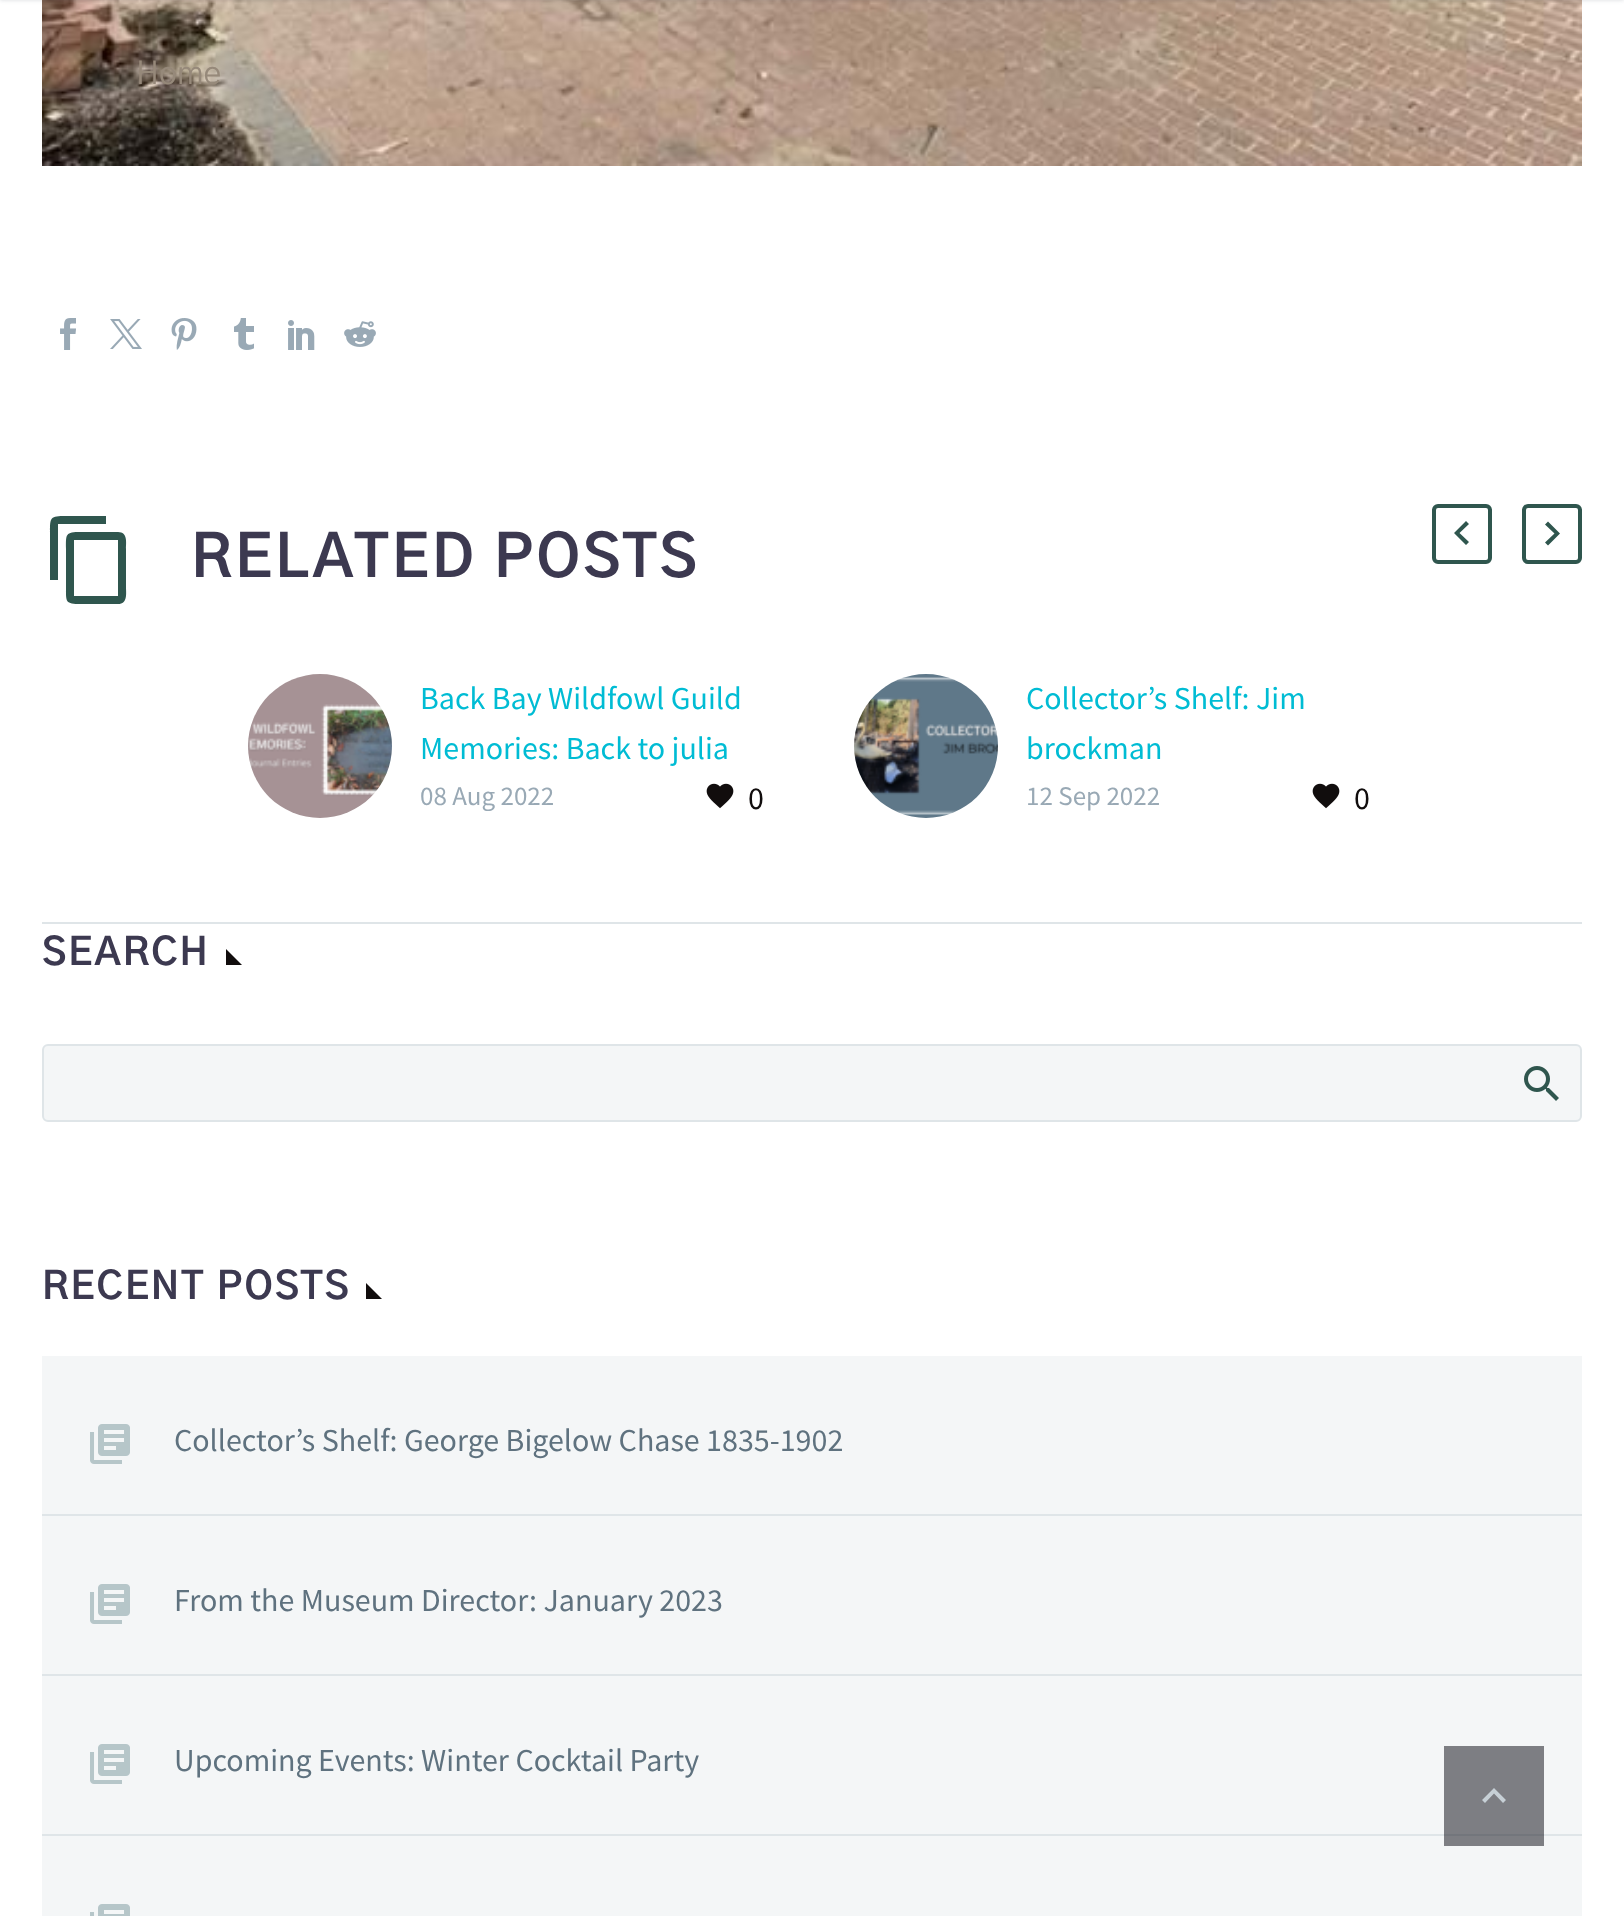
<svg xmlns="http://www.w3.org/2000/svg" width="1624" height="1916">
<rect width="100%" height="100%" fill="#fff"/>
<image x="42" y="0" width="1540" height="166" href="media/1.png"/>
<rect y="-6" width="1624" height="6" fill="#38455433" filter="blur(2px)"/>
<text x="136" y="84" style="font-family:'Gothic A1';font-size:32px;fill:#96897a">Home</text>
<image x="60" y="318" width="16" height="32" href="media/2.png"/>
<image x="110" y="319" width="32" height="30" href="media/3.png"/>
<image x="171" y="318" width="26" height="32" href="media/4.png"/>
<image x="234" y="318" width="20" height="32" href="media/5.png"/>
<image x="288" y="320" width="27" height="30" href="media/6.png"/>
<image x="344" y="321" width="32" height="26" href="media/7.png"/>
<rect x="42" y="922" width="1540" height="2" fill="#dfe5e8"/>
<path d="M106 516h-40c-16 0-16 1-16 17v47h8v-56h48zm12 16h-37c-16 0-15 2-15 17v38c0 15-1 17 15 17h37c10 0 8-11 8-17v-38c0-6 2-17-8-17zm0 64h-44v-56h44z" fill="#2f564e"/>
<text x="191" y="577" style="font-family:'Gothic A1';font-size:58.5px;font-weight:bold;letter-spacing:2.9px;fill:#3c3950">RELATED POSTS</text>
<rect x="1434" y="506" width="56" height="56" rx="4" fill="none" stroke="#2f564e" stroke-width="4"/>
<path d="M1469 542l-9.5-9l9.5-9l-3-3l-12 12l12 12z" fill="#2f564e"/>
<rect x="1524" y="506" width="56" height="56" rx="4" fill="none" stroke="#2f564e" stroke-width="4"/>
<path d="M1545 542.5l9.5-9l-9.5-9l3-3l12 12l-12 12z" fill="#2f564e"/>
<image x="248" y="674" width="144" height="144" href="media/8.png"/>
<text x="420" y="709" style="font-family:Source Sans Pro;font-size:32px;fill:#00bcd4">Back Bay Wildfowl Guild</text>
<text x="420" y="759" style="font-family:Source Sans Pro;font-size:32px;fill:#00bcd4">Memories: Back to julia</text>
<text x="420" y="805" style="font-family:Source Sans Pro;font-size:27px;fill:#99a9b5">08 Aug 2022</text>
<image x="706" y="783" width="28" height="26" href="media/9.png"/>
<text x="748" y="809" style="font-family:Source Sans Pro;font-size:32px;fill:#110d0d">0</text>
<image x="854" y="674" width="144" height="144" href="media/10.png"/>
<text x="1026" y="709" style="font-family:Source Sans Pro;font-size:32px;fill:#00bcd4">Collector’s Shelf: Jim</text>
<text x="1026" y="759" style="font-family:Source Sans Pro;font-size:32px;fill:#00bcd4">brockman</text>
<text x="1026" y="805" style="font-family:Source Sans Pro;font-size:27px;fill:#99a9b5">12 Sep 2022</text>
<image x="1312" y="783" width="28" height="26" href="media/9.png"/>
<text x="1354" y="809" style="font-family:Source Sans Pro;font-size:32px;fill:#110d0d">0</text>
<text x="42" y="965" style="font-family:'Gothic A1';font-size:38px;font-weight:bold;letter-spacing:1.9px;fill:#3c3950">SEARCH</text>
<path d="M226 949v16h16z" fill="#110d0d"/>
<rect x="43" y="1045" width="1538" height="76" rx="5" fill="#f4f6f7" stroke="#dfe5e8" stroke-width="2"/>
<image x="1524" y="1066" width="35" height="35" href="media/11.png"/>
<text x="42" y="1299" style="font-family:'Gothic A1';font-size:38px;font-weight:bold;letter-spacing:1.9px;fill:#3c3950">RECENT POSTS</text>
<path d="M366 1283v16h16z" fill="#110d0d"/>
<rect x="42" y="1356" width="1540" height="560" fill="#f4f6f7"/>
<rect x="1444" y="1746" width="100" height="100" fill="#7d7e83"/>
<rect x="42" y="1514" width="1540" height="2" fill="#dfe5e8"/>
<image x="90" y="1424" width="40" height="40" href="media/12.png"/>
<text x="174" y="1451" style="font-family:Source Sans Pro;font-size:32px;fill:#5f727f">Collector’s Shelf: George Bigelow Chase 1835-1902</text>
<rect x="42" y="1674" width="1540" height="2" fill="#dfe5e8"/>
<image x="90" y="1584" width="40" height="40" href="media/12.png"/>
<text x="174" y="1611" style="font-family:Source Sans Pro;font-size:32px;fill:#5f727f">From the Museum Director: January 2023</text>
<rect x="42" y="1834" width="1540" height="2" fill="#dfe5e8"/>
<rect x="1444" y="1834" width="100" height="2" fill="#73767c"/>
<image x="90" y="1744" width="40" height="40" href="media/12.png"/>
<text x="174" y="1771" style="font-family:Source Sans Pro;font-size:32px;fill:#5f727f">Upcoming Events: Winter Cocktail Party</text>
<image x="90" y="1904" width="40" height="12" href="media/13.png"/>
<path d="M1485 1803l9-9.5l9 9.5l3-3l-12-12l-12 12z" fill="#c7d0d6"/>
</svg>
